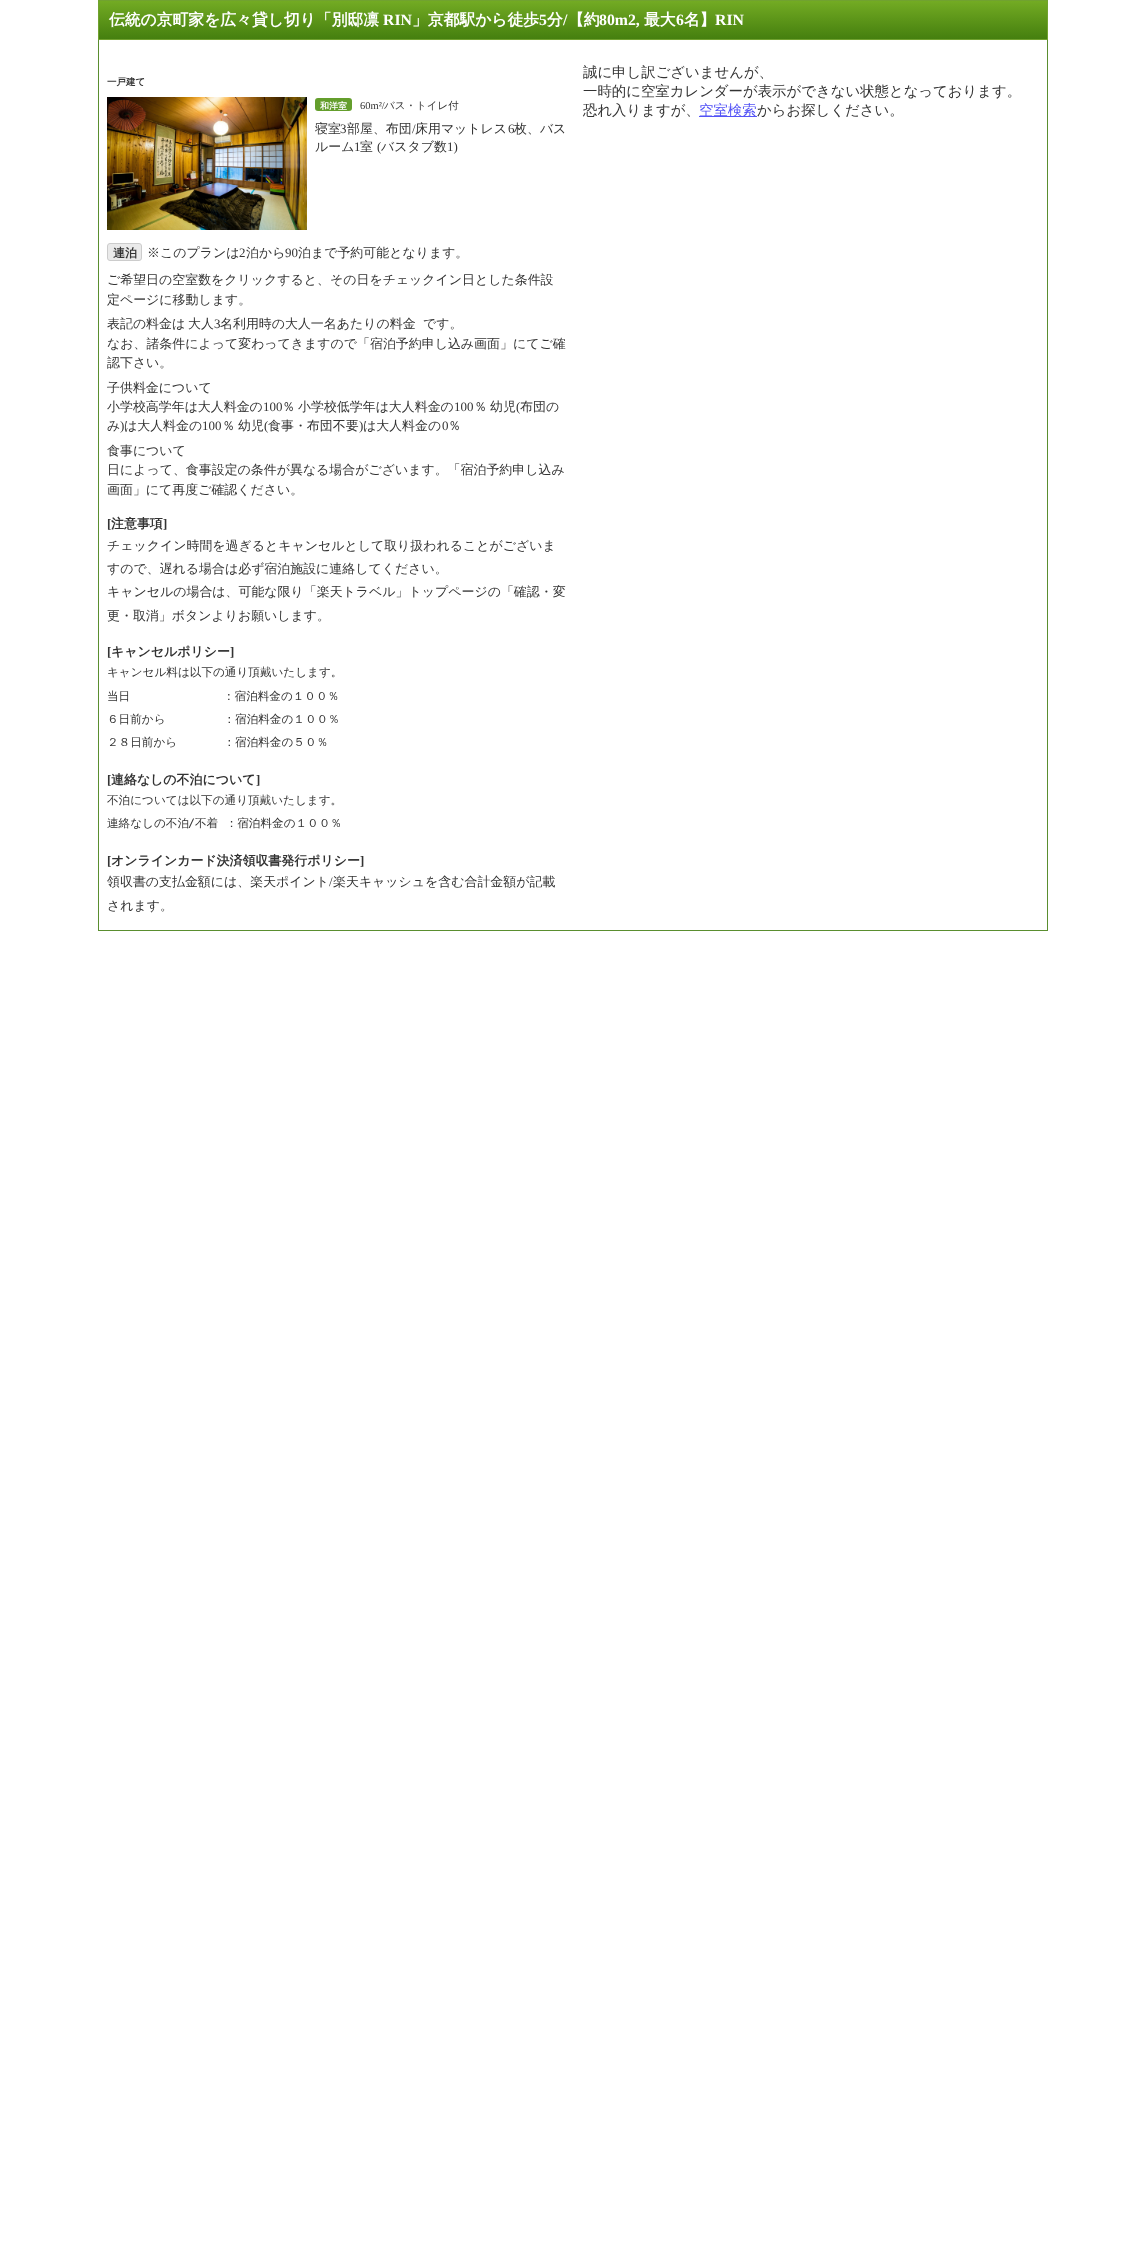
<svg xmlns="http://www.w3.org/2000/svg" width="1145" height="2241">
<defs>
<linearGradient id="g1" gradientUnits="userSpaceOnUse" x1="573" y1="1" x2="573" y2="39"><stop offset="0" stop-color="#73ab23"/><stop offset="1" stop-color="#457f0f"/></linearGradient>
<clipPath id="clip1"><rect x="107" y="314" width="460" height="59"/></clipPath>
</defs>
<rect width="100%" height="100%" fill="#fff"/>
<rect x="99" y="1" width="948" height="38" fill="url(#g1)"/>
<rect x="98.5" y="0.5" width="949" height="39" fill="none" stroke="#71a230"/>
<text x="109" y="25" style="font-family:WenQuanYi Zen Hei;font-size:15.8px;font-weight:bold;fill:#fff">伝統の京町家を広々貸し切り「別邸凛</text>
<text x="383" y="25" style="font-family:Liberation Serif;font-size:15.8px;font-weight:bold;fill:#fff">RIN</text>
<text x="412" y="25" style="font-family:WenQuanYi Zen Hei;font-size:15.8px;font-weight:bold;fill:#fff">」京都駅から徒歩</text>
<text x="539" y="25" style="font-family:Liberation Serif;font-size:15.8px;font-weight:bold;fill:#fff">5</text>
<text x="547" y="25" style="font-family:WenQuanYi Zen Hei;font-size:15.8px;font-weight:bold;fill:#fff">分</text>
<text x="563" y="25" style="font-family:Liberation Serif;font-size:15.8px;font-weight:bold;fill:#fff">/</text>
<text x="568" y="25" style="font-family:WenQuanYi Zen Hei;font-size:15.8px;font-weight:bold;fill:#fff">【約</text>
<text x="599" y="25" style="font-family:Liberation Serif;font-size:15.8px;font-weight:bold;fill:#fff">80m2,</text>
<text x="644" y="25" style="font-family:WenQuanYi Zen Hei;font-size:15.8px;font-weight:bold;fill:#fff">最大</text>
<text x="676" y="25" style="font-family:Liberation Serif;font-size:15.8px;font-weight:bold;fill:#fff">6</text>
<text x="684" y="25" style="font-family:WenQuanYi Zen Hei;font-size:15.8px;font-weight:bold;fill:#fff">名】</text>
<text x="715" y="25" style="font-family:Liberation Serif;font-size:15.8px;font-weight:bold;fill:#fff">RIN</text>
<rect x="1047" y="40" width="1" height="891" fill="#5a8e2f"/>
<rect x="98" y="930" width="950" height="1" fill="#5a8e2f"/>
<rect x="98" y="40" width="1" height="891" fill="#5a8e2f"/>
<text x="107" y="85" style="font-family:WenQuanYi Zen Hei;font-size:9.5px;font-weight:bold;fill:#333">一戸建て</text>
<image x="107" y="97" width="200" height="133" href="media/1.png"/>
<rect x="315" y="98" width="37" height="13" rx="3" fill="#649e2c"/>
<text x="320" y="109" style="font-family:WenQuanYi Zen Hei;font-size:9px;font-weight:bold;fill:#fff">和洋室</text>
<text x="360" y="109" style="font-family:Liberation Serif;font-size:10.5px;fill:#333">60m²/</text>
<text x="384" y="109" style="font-family:WenQuanYi Zen Hei;font-size:10.5px;font-weight:500;fill:#333">バス・トイレ付</text>
<text x="315" y="133" style="font-family:WenQuanYi Zen Hei;font-size:12.95px;font-weight:500;fill:#333">寝室</text>
<text x="340" y="133" style="font-family:Liberation Serif;font-size:12.95px;fill:#333">3</text>
<text x="347" y="133" style="font-family:WenQuanYi Zen Hei;font-size:12.95px;font-weight:500;fill:#333">部屋、布団</text>
<text x="412" y="133" style="font-family:Liberation Serif;font-size:12.95px;fill:#333">/</text>
<text x="415" y="133" style="font-family:WenQuanYi Zen Hei;font-size:12.95px;font-weight:500;fill:#333">床用マットレス</text>
<text x="508" y="133" style="font-family:Liberation Serif;font-size:12.95px;fill:#333">6</text>
<text x="514" y="133" style="font-family:WenQuanYi Zen Hei;font-size:12.95px;font-weight:500;fill:#333">枚、バス</text>
<text x="315" y="151" style="font-family:WenQuanYi Zen Hei;font-size:12.95px;font-weight:500;fill:#333">ルーム</text>
<text x="354" y="151" style="font-family:Liberation Serif;font-size:12.95px;fill:#333">1</text>
<text x="360" y="151" style="font-family:WenQuanYi Zen Hei;font-size:12.95px;font-weight:500;fill:#333">室</text>
<text x="377" y="151" style="font-family:Liberation Serif;font-size:12.95px;fill:#333">(</text>
<text x="381" y="151" style="font-family:WenQuanYi Zen Hei;font-size:12.95px;font-weight:500;fill:#333">バスタブ数</text>
<text x="447" y="151" style="font-family:Liberation Serif;font-size:12.95px;fill:#333">1)</text>
<rect x="107.5" y="243.5" width="34" height="17" rx="2.5" fill="#eaeaea" stroke="#ccc"/>
<text x="113" y="257" style="font-family:WenQuanYi Zen Hei;font-size:12px;font-weight:bold;fill:#333">連泊</text>
<text x="147" y="257" style="font-family:WenQuanYi Zen Hei;font-size:12.95px;font-weight:500;fill:#333">※このプランは</text>
<text x="239" y="257" style="font-family:Liberation Serif;font-size:12.95px;fill:#333">2</text>
<text x="246" y="257" style="font-family:WenQuanYi Zen Hei;font-size:12.95px;font-weight:500;fill:#333">泊から</text>
<text x="285" y="257" style="font-family:Liberation Serif;font-size:12.95px;fill:#333">90</text>
<text x="298" y="257" style="font-family:WenQuanYi Zen Hei;font-size:12.95px;font-weight:500;fill:#333">泊まで予約可能となります。</text>
<text x="107" y="284" style="font-family:WenQuanYi Zen Hei;font-size:12.95px;font-weight:500;fill:#333">ご希望日の空室数をクリックすると、その日をチェックイン日とした条件設</text>
<text x="107" y="304" style="font-family:WenQuanYi Zen Hei;font-size:12.95px;font-weight:500;fill:#333">定ページに移動します。</text>
<text x="107" y="328" style="font-family:WenQuanYi Zen Hei;font-size:12.95px;font-weight:500;fill:#333">表記の料金は</text>
<text x="188" y="328" style="font-family:WenQuanYi Zen Hei;font-size:12.95px;font-weight:500;fill:#333">大人</text>
<text x="214" y="328" style="font-family:Liberation Serif;font-size:12.95px;fill:#333">3</text>
<text x="220" y="328" style="font-family:WenQuanYi Zen Hei;font-size:12.95px;font-weight:500;fill:#333">名利用時の大人一名あたりの料金</text>
<text x="423" y="328" style="font-family:WenQuanYi Zen Hei;font-size:12.95px;font-weight:500;fill:#333">です。</text>
<text x="107" y="348" style="font-family:WenQuanYi Zen Hei;font-size:12.95px;font-weight:500;fill:#333">なお、諸条件によって変わってきますので「宿泊予約申し込み画面」にてご確</text>
<g clip-path="url(#clip1)">
<text x="107" y="367" style="font-family:WenQuanYi Zen Hei;font-size:12.95px;font-weight:500;fill:#333">認下さい。</text>
</g>
<text x="107" y="392" style="font-family:WenQuanYi Zen Hei;font-size:12.95px;font-weight:500;fill:#333">子供料金について</text>
<text x="107" y="411" style="font-family:WenQuanYi Zen Hei;font-size:12.95px;font-weight:500;fill:#333">小学校高学年は大人料金の</text>
<text x="263" y="411" style="font-family:Liberation Serif;font-size:12.95px;fill:#333">100</text>
<text x="282" y="411" style="font-family:WenQuanYi Zen Hei;font-size:12.95px;font-weight:500;fill:#333">％</text>
<text x="298" y="411" style="font-family:WenQuanYi Zen Hei;font-size:12.95px;font-weight:500;fill:#333">小学校低学年は大人料金の</text>
<text x="454" y="411" style="font-family:Liberation Serif;font-size:12.95px;fill:#333">100</text>
<text x="474" y="411" style="font-family:WenQuanYi Zen Hei;font-size:12.95px;font-weight:500;fill:#333">％</text>
<text x="490" y="411" style="font-family:WenQuanYi Zen Hei;font-size:12.95px;font-weight:500;fill:#333">幼児</text>
<text x="516" y="411" style="font-family:Liberation Serif;font-size:12.95px;fill:#333">(</text>
<text x="520" y="411" style="font-family:WenQuanYi Zen Hei;font-size:12.95px;font-weight:500;fill:#333">布団の</text>
<text x="107" y="430" style="font-family:WenQuanYi Zen Hei;font-size:12.95px;font-weight:500;fill:#333">み</text>
<text x="120" y="430" style="font-family:Liberation Serif;font-size:12.95px;fill:#333">)</text>
<text x="124" y="430" style="font-family:WenQuanYi Zen Hei;font-size:12.95px;font-weight:500;fill:#333">は大人料金の</text>
<text x="202" y="430" style="font-family:Liberation Serif;font-size:12.95px;fill:#333">100</text>
<text x="222" y="430" style="font-family:WenQuanYi Zen Hei;font-size:12.95px;font-weight:500;fill:#333">％</text>
<text x="238" y="430" style="font-family:WenQuanYi Zen Hei;font-size:12.95px;font-weight:500;fill:#333">幼児</text>
<text x="264" y="430" style="font-family:Liberation Serif;font-size:12.95px;fill:#333">(</text>
<text x="268" y="430" style="font-family:WenQuanYi Zen Hei;font-size:12.95px;font-weight:500;fill:#333">食事・布団不要</text>
<text x="359" y="430" style="font-family:Liberation Serif;font-size:12.95px;fill:#333">)</text>
<text x="363" y="430" style="font-family:WenQuanYi Zen Hei;font-size:12.95px;font-weight:500;fill:#333">は大人料金の</text>
<text x="442" y="430" style="font-family:Liberation Serif;font-size:12.95px;fill:#333">0</text>
<text x="448" y="430" style="font-family:WenQuanYi Zen Hei;font-size:12.95px;font-weight:500;fill:#333">％</text>
<text x="107" y="455" style="font-family:WenQuanYi Zen Hei;font-size:12.95px;font-weight:500;fill:#333">食事について</text>
<text x="107" y="474" style="font-family:WenQuanYi Zen Hei;font-size:12.95px;font-weight:500;fill:#333">日によって、食事設定の条件が異なる場合がございます。「宿泊予約申し込み</text>
<text x="107" y="494" style="font-family:WenQuanYi Zen Hei;font-size:12.95px;font-weight:500;fill:#333">画面」にて再度ご確認ください。</text>
<text x="107" y="528" style="font-family:Liberation Serif;font-size:12.95px;font-weight:bold;fill:#333">[</text>
<text x="111" y="528" style="font-family:WenQuanYi Zen Hei;font-size:12.95px;font-weight:bold;fill:#333">注意事項</text>
<text x="163" y="528" style="font-family:Liberation Serif;font-size:12.95px;font-weight:bold;fill:#333">]</text>
<text x="107" y="550" style="font-family:WenQuanYi Zen Hei;font-size:12.95px;font-weight:500;fill:#333">チェックイン時間を過ぎるとキャンセルとして取り扱われることがございま</text>
<text x="107" y="573" style="font-family:WenQuanYi Zen Hei;font-size:12.95px;font-weight:500;fill:#333">すので、遅れる場合は必ず宿泊施設に連絡してください。</text>
<text x="107" y="596" style="font-family:WenQuanYi Zen Hei;font-size:12.95px;font-weight:500;fill:#333">キャンセルの場合は、可能な限り「楽天トラベル」トップページの「確認・変</text>
<text x="107" y="620" style="font-family:WenQuanYi Zen Hei;font-size:12.95px;font-weight:500;fill:#333">更・取消」ボタンよりお願いします。</text>
<text x="107" y="656" style="font-family:Liberation Serif;font-size:12.95px;font-weight:bold;fill:#333">[</text>
<text x="111" y="656" style="font-family:WenQuanYi Zen Hei;font-size:12.95px;font-weight:bold;fill:#333">キャンセルポリシー</text>
<text x="230" y="656" style="font-family:Liberation Serif;font-size:12.95px;font-weight:bold;fill:#333">]</text>
<text x="107" y="676" style="font-family:WenQuanYi Zen Hei;font-size:11.6px;font-weight:500;fill:#333">キャンセル料は以下の通り頂戴いたします。</text>
<text x="107" y="700" style="font-family:WenQuanYi Zen Hei;font-size:11.6px;font-weight:500;fill:#333">当日　　　　　　　　：宿泊料金の１００％</text>
<text x="107" y="723" style="font-family:WenQuanYi Zen Hei;font-size:11.6px;font-weight:500;fill:#333">６日前から　　　　　：宿泊料金の１００％</text>
<text x="107" y="746" style="font-family:WenQuanYi Zen Hei;font-size:11.6px;font-weight:500;fill:#333">２８日前から　　　　：宿泊料金の５０％</text>
<text x="107" y="784" style="font-family:Liberation Serif;font-size:12.95px;font-weight:bold;fill:#333">[</text>
<text x="111" y="784" style="font-family:WenQuanYi Zen Hei;font-size:12.95px;font-weight:bold;fill:#333">連絡なしの不泊について</text>
<text x="256" y="784" style="font-family:Liberation Serif;font-size:12.95px;font-weight:bold;fill:#333">]</text>
<text x="107" y="804" style="font-family:WenQuanYi Zen Hei;font-size:11.6px;font-weight:500;fill:#333">不泊については以下の通り頂戴いたします。</text>
<text x="107" y="827" style="font-family:WenQuanYi Zen Hei;font-size:11.6px;font-weight:500;fill:#333">連絡なしの不泊</text>
<text x="188" y="827" style="font-family:DejaVu Sans Mono;font-size:11.6px;fill:#333">/</text>
<text x="195" y="827" word-spacing="4" style="font-family:WenQuanYi Zen Hei;font-size:11.6px;font-weight:500;fill:#333">不着 ：宿泊料金の１００％</text>
<text x="107" y="865" style="font-family:Liberation Serif;font-size:12.95px;font-weight:bold;fill:#333">[</text>
<text x="111" y="865" style="font-family:WenQuanYi Zen Hei;font-size:12.95px;font-weight:bold;fill:#333">オンラインカード決済領収書発行ポリシー</text>
<text x="360" y="865" style="font-family:Liberation Serif;font-size:12.95px;font-weight:bold;fill:#333">]</text>
<text x="107" y="886" style="font-family:WenQuanYi Zen Hei;font-size:12.95px;font-weight:500;fill:#333">領収書の支払金額には、楽天ポイント</text>
<text x="329" y="886" style="font-family:Liberation Serif;font-size:12.95px;fill:#333">/</text>
<text x="333" y="886" style="font-family:WenQuanYi Zen Hei;font-size:12.95px;font-weight:500;fill:#333">楽天キャッシュを含む合計金額が記載</text>
<text x="107" y="910" style="font-family:WenQuanYi Zen Hei;font-size:12.95px;font-weight:500;fill:#333">されます。</text>
<text x="583" y="77" style="font-family:WenQuanYi Zen Hei;font-size:14.4px;font-weight:500;fill:#333">誠に申し訳ございませんが、</text>
<text x="583" y="96" style="font-family:WenQuanYi Zen Hei;font-size:14.4px;font-weight:500;fill:#333">一時的に空室カレンダーが表示ができない状態となっております。</text>
<text x="583" y="115" style="font-family:WenQuanYi Zen Hei;font-size:14.4px;font-weight:500;fill:#333">恐れ入りますが、</text>
<rect x="699" y="116" width="58" height="1" fill="#5454f6"/>
<text x="699" y="115" style="font-family:WenQuanYi Zen Hei;font-size:14.4px;font-weight:500;fill:#5454f6">空室検索</text>
<text x="757" y="115" style="font-family:WenQuanYi Zen Hei;font-size:14.4px;font-weight:500;fill:#333">からお探しください。</text>
</svg>
